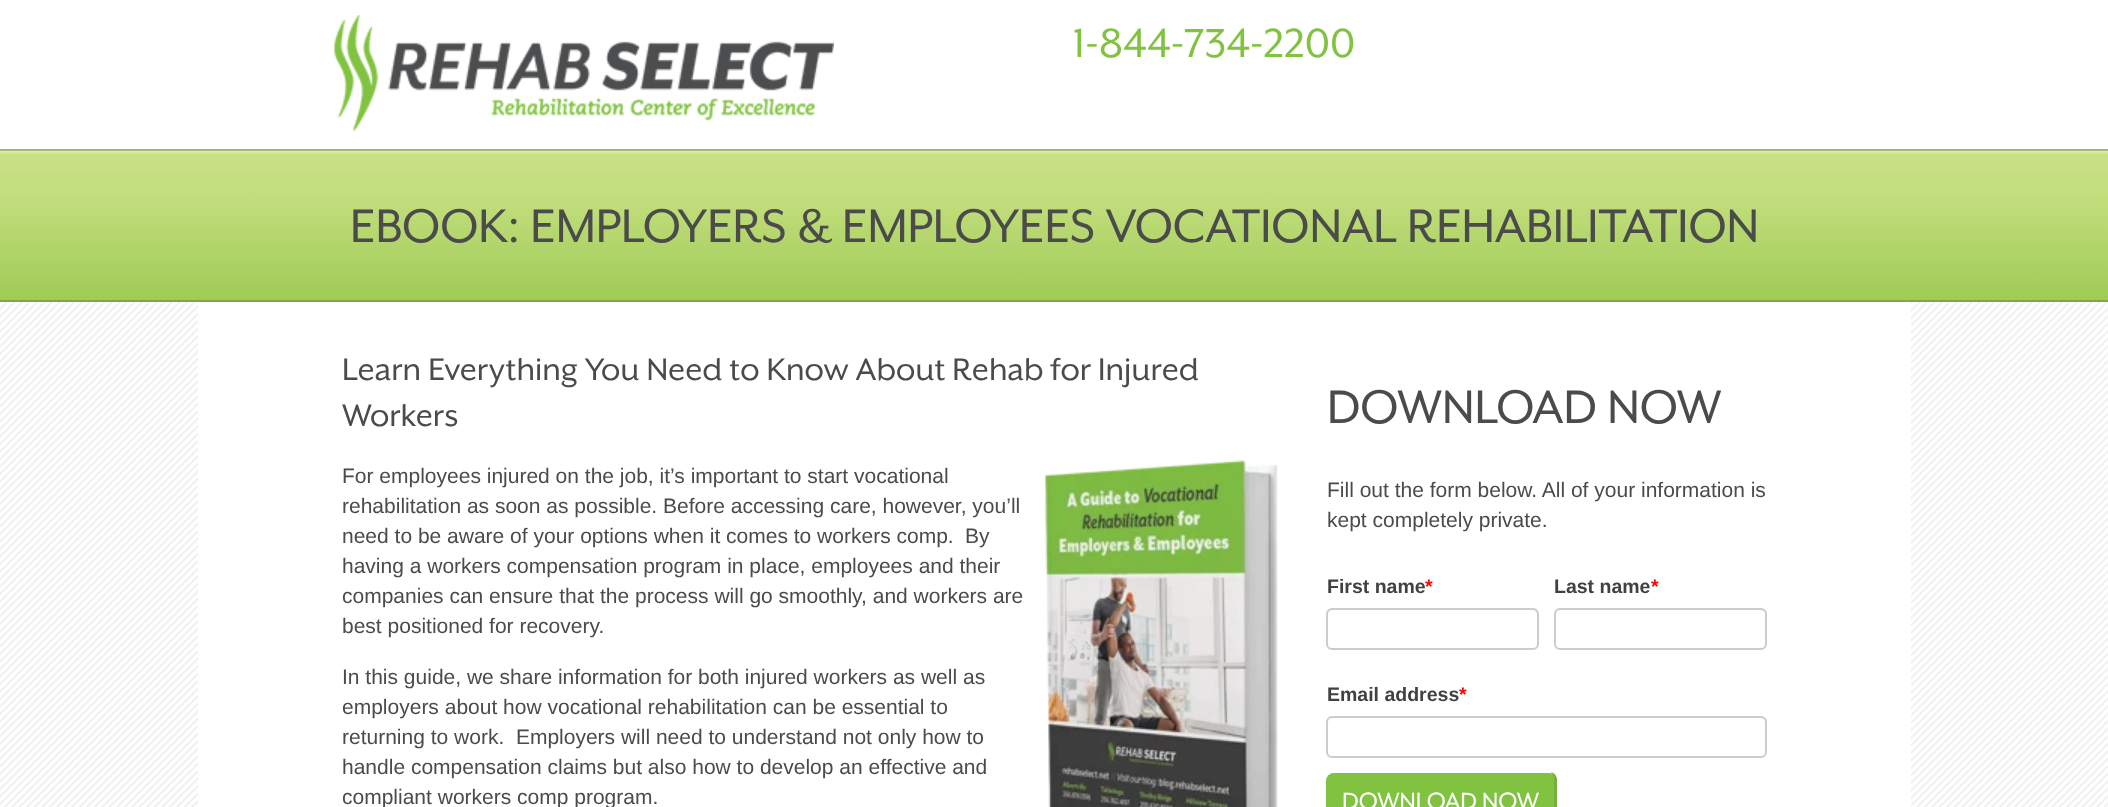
<svg xmlns="http://www.w3.org/2000/svg" width="2108" height="807">
<defs>
<linearGradient id="g1" gradientUnits="userSpaceOnUse" x1="1055" y1="150" x2="1055" y2="300"><stop offset="0" stop-color="#e5f1c2"/><stop offset="0.03" stop-color="#cae286"/><stop offset="0.38" stop-color="#bfdc79"/><stop offset="1" stop-color="#9fcb56"/></linearGradient>
</defs>
<rect width="100%" height="100%" fill="#fff"/>
<image x="0" y="302" width="2108" height="505" href="media/1.png"/>
<image x="334" y="15" width="500" height="116" href="media/2.png"/>
<text x="1073" y="57" style="font-family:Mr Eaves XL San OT;font-size:46.5px;fill:#81c341">1-844-734-2200</text>
<rect y="151" width="2108" height="149" fill="url(#g1)"/>
<rect y="149" width="2108" height="2" fill="#a2ba66"/>
<rect y="300" width="2108" height="2" fill="#82a546"/>
<text x="350" y="242" style="font-family:Mr Eaves XL San OT;font-size:54px;fill:#4b4b4b">EBOOK: EMPLOYERS &amp; EMPLOYEES VOCATIONAL REHABILITATION</text>
<rect x="198" y="302" width="1713" height="505" fill="#fff"/>
<text x="342" y="380" style="font-family:Mr Eaves XL San OT;font-size:36px;fill:#4b4b4b">Learn Everything You Need to Know About Rehab for Injured</text>
<text x="342" y="426" style="font-family:Mr Eaves XL San OT;font-size:36px;fill:#4b4b4b">Workers</text>
<text x="342" y="483" style="font-family:Liberation Sans;font-size:21px;fill:#4b4b4b">For employees injured on the job, it’s important to start vocational</text>
<text x="342" y="513" style="font-family:Liberation Sans;font-size:21px;fill:#4b4b4b">rehabilitation as soon as possible. Before accessing care, however, you’ll</text>
<text x="342" y="543" style="font-family:Liberation Sans;font-size:21px;fill:#4b4b4b">need to be aware of your options when it comes to workers comp.</text>
<text x="965" y="543" style="font-family:Liberation Sans;font-size:21px;fill:#4b4b4b">By</text>
<text x="342" y="573" style="font-family:Liberation Sans;font-size:21px;fill:#4b4b4b">having a workers compensation program in place, employees and their</text>
<text x="342" y="603" style="font-family:Liberation Sans;font-size:21px;fill:#4b4b4b">companies can ensure that the process will go smoothly, and workers are</text>
<text x="342" y="633" style="font-family:Liberation Sans;font-size:21px;fill:#4b4b4b">best positioned for recovery.</text>
<image x="1044" y="460" width="234" height="347" href="media/3.png"/>
<text x="342" y="684" style="font-family:Liberation Sans;font-size:21px;fill:#4b4b4b">In this guide, we share information for both injured workers as well as</text>
<text x="342" y="714" style="font-family:Liberation Sans;font-size:21px;fill:#4b4b4b">employers about how vocational rehabilitation can be essential to</text>
<text x="342" y="744" style="font-family:Liberation Sans;font-size:21px;fill:#4b4b4b" xml:space="preserve">returning to work.  Employers will need to understand not only how to</text>
<text x="342" y="774" style="font-family:Liberation Sans;font-size:21px;fill:#4b4b4b">handle compensation claims but also how to develop an effective and</text>
<text x="342" y="804" style="font-family:Liberation Sans;font-size:21px;fill:#4b4b4b">compliant workers comp program.</text>
<text x="1327" y="423" style="font-family:Mr Eaves XL San OT;font-size:54px;fill:#4b4b4b">DOWNLOAD NOW</text>
<text x="1327" y="497" style="font-family:Liberation Sans;font-size:21px;fill:#4b4b4b">Fill out the form below. All of your information is</text>
<text x="1327" y="527" style="font-family:Liberation Sans;font-size:21px;fill:#4b4b4b">kept completely private.</text>
<text x="1327" y="593" style="font-family:Liberation Sans;font-size:19.5px;font-weight:bold;fill:#414141">First name</text>
<text x="1425" y="593" style="font-family:Liberation Sans;font-size:19.5px;font-weight:bold;fill:#f00">*</text>
<path d="M1332 610h201l3 2l2 3v-1c0-3-2-5-5-5h-200c-3 0-5 2-5 5v1c0-2 2-5 4-5z" fill="#ececec"/>
<rect x="1327" y="609" width="211" height="40" rx="5" fill="none" stroke="#ccc" stroke-width="2"/>
<text x="1554" y="593" style="font-family:Liberation Sans;font-size:19.5px;font-weight:bold;fill:#414141">Last name</text>
<text x="1651" y="593" style="font-family:Liberation Sans;font-size:19.5px;font-weight:bold;fill:#f00">*</text>
<path d="M1560 610h201l3 2l2 3v-1c0-3-2-5-5-5h-200c-3 0-5 2-5 5v1c0-2 2-5 4-5z" fill="#ececec"/>
<rect x="1555" y="609" width="211" height="40" rx="5" fill="none" stroke="#ccc" stroke-width="2"/>
<text x="1327" y="701" style="font-family:Liberation Sans;font-size:19.5px;font-weight:bold;fill:#414141">Email address</text>
<text x="1459" y="701" style="font-family:Liberation Sans;font-size:19.5px;font-weight:bold;fill:#f00">*</text>
<path d="M1332 718h429c2 0 5 3 5 5c0-3-2-6-5-6h-428c-3 0-5 3-5 6c0-2 2-5 4-5z" fill="#ececec"/>
<rect x="1327" y="717" width="439" height="40" rx="5" fill="none" stroke="#ccc" stroke-width="2"/>
<rect x="1326" y="773" width="231" height="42" rx="8" fill="#81c341"/>
<path d="M1334 772h216c4 0 7 4 7 8v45c0 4-3 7-7 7h-216c-5 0-8-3-8-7v-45c0-4 3-8 8-8zm0 0h216c2 0 4 4 4 8v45c0 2-2 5-4 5h-216c-5 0-8-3-8-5v-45c0-4 3-8 8-8z" fill="#74b03b" fill-rule="evenodd"/>
<text x="1342" y="809" style="font-family:Mr Eaves XL San OT;font-size:27px;fill:#fff">DOWNLOAD NOW</text>
</svg>
